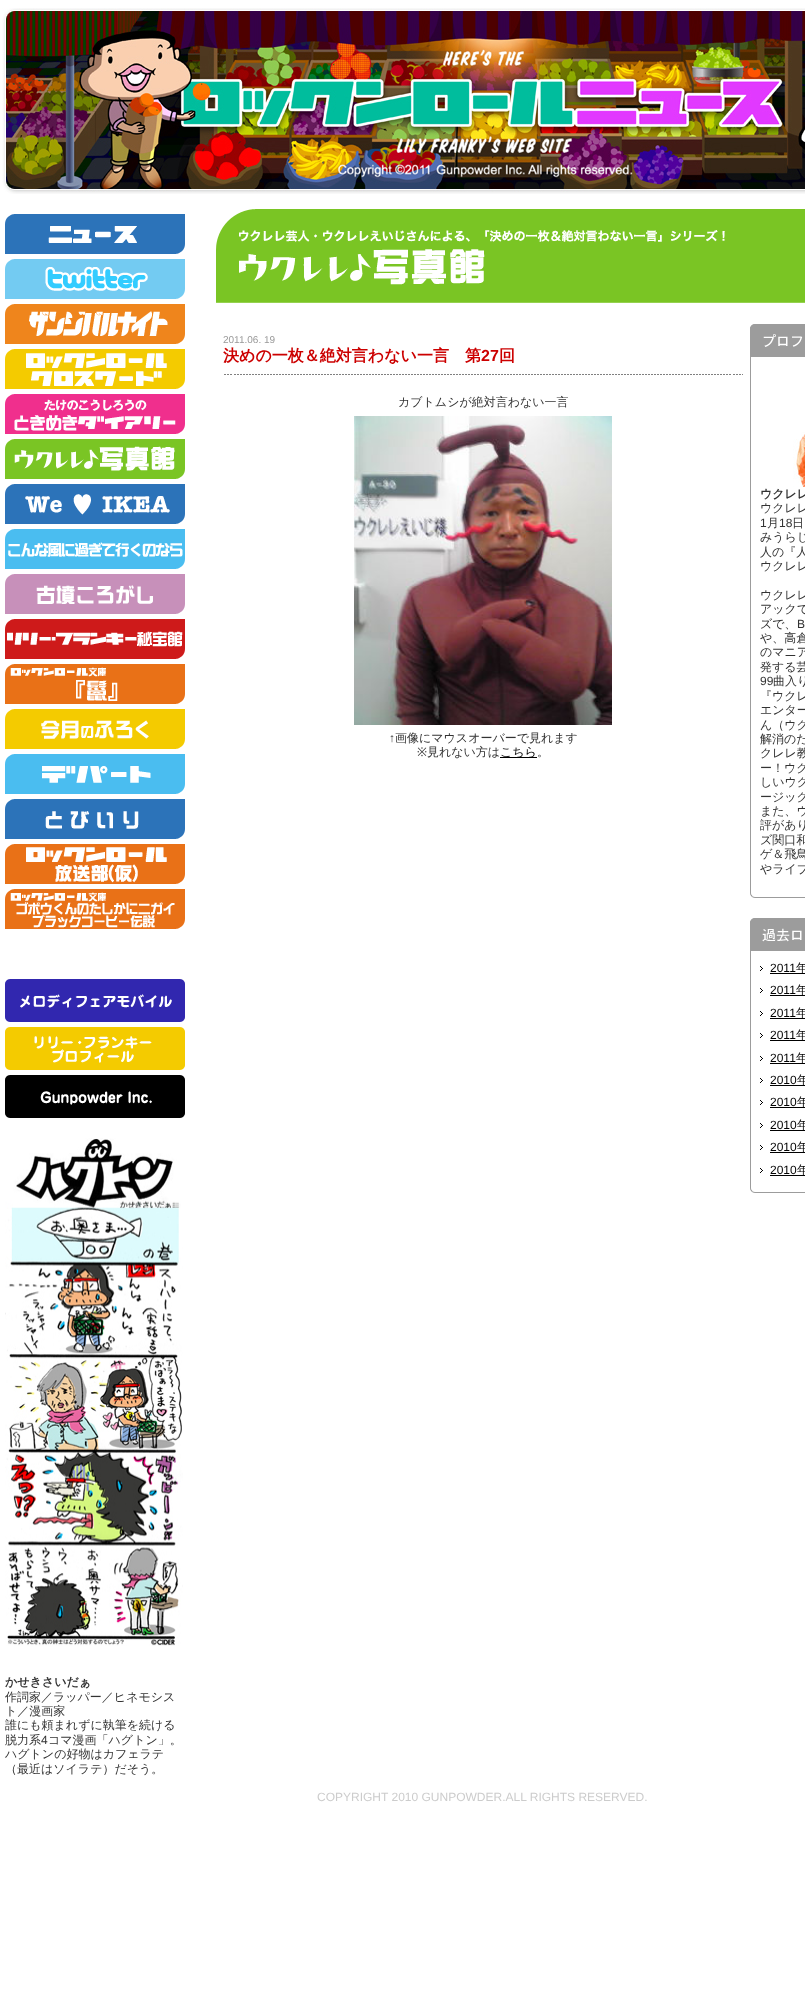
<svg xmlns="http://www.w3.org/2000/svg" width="805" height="2004">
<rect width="100%" height="100%" fill="#fff"/>
<image x="2" y="8" width="803" height="186" href="media/1.png"/>
<image x="216" y="209" width="589" height="94" href="media/2.png"/>
<image x="224" y="374" width="519" height="1" href="media/3.png"/>
<text x="223" y="343" style="font-family:Liberation Sans;font-size:10px;fill:#999">2011.06. 19</text>
<text x="223" y="361" style="font-family:WenQuanYi Zen Hei;font-size:16px;font-weight:bold;fill:#c00">決めの一枚＆絶対言わない一言　第</text>
<text x="481" y="361" style="font-family:Liberation Sans;font-size:16px;font-weight:bold;fill:#c00">27</text>
<text x="499" y="361" style="font-family:WenQuanYi Zen Hei;font-size:16px;font-weight:bold;fill:#c00">回</text>
<text x="398" y="406" style="font-family:WenQuanYi Zen Hei;font-size:12px;font-weight:500;fill:#333">カブトムシが絶対言わない一言</text>
<image x="354" y="416" width="258" height="309" href="media/4.png"/>
<text x="389" y="742" style="font-family:Liberation Sans;font-size:12px;fill:#333">↑</text>
<text x="395" y="742" style="font-family:WenQuanYi Zen Hei;font-size:12px;font-weight:500;fill:#333">画像にマウスオーバーで見れます</text>
<text x="417" y="756" style="font-family:Noto Sans;font-size:12px;fill:#333">※</text>
<text x="427" y="756" style="font-family:WenQuanYi Zen Hei;font-size:12px;font-weight:500;fill:#333">見れない方は</text>
<rect x="500" y="757" width="37" height="1" fill="#000"/>
<text x="500" y="756" style="font-family:WenQuanYi Zen Hei;font-size:12px;font-weight:500;fill:#000">こちら</text>
<text x="537" y="756" style="font-family:WenQuanYi Zen Hei;font-size:12px;font-weight:500;fill:#333">。</text>
<image x="750" y="888" width="55" height="10" href="media/5.png"/>
<image x="750" y="324" width="55" height="33" href="media/6.png"/>
<rect x="750" y="357" width="1" height="531" fill="#9c9c9c"/>
<image x="793" y="432" width="12" height="55" href="media/7.png"/>
<text x="760" y="498" style="font-family:WenQuanYi Zen Hei;font-size:12px;font-weight:bold;fill:#333">ウクレレ</text>
<text x="760" y="512" style="font-family:WenQuanYi Zen Hei;font-size:12px;font-weight:500;fill:#333">ウクレレ</text>
<text x="760" y="527" style="font-family:Liberation Sans;font-size:12px;fill:#333">1</text>
<text x="767" y="527" style="font-family:WenQuanYi Zen Hei;font-size:12px;font-weight:500;fill:#333">月</text>
<text x="779" y="527" style="font-family:Liberation Sans;font-size:12px;fill:#333">18</text>
<text x="792" y="527" style="font-family:WenQuanYi Zen Hei;font-size:12px;font-weight:500;fill:#333">日</text>
<text x="760" y="541" style="font-family:WenQuanYi Zen Hei;font-size:12px;font-weight:500;fill:#333">みうらじ</text>
<text x="760" y="556" style="font-family:WenQuanYi Zen Hei;font-size:12px;font-weight:500;fill:#333">人の『人</text>
<text x="760" y="570" style="font-family:WenQuanYi Zen Hei;font-size:12px;font-weight:500;fill:#333">ウクレレ</text>
<text x="760" y="599" style="font-family:WenQuanYi Zen Hei;font-size:12px;font-weight:500;fill:#333">ウクレレ</text>
<text x="760" y="613" style="font-family:WenQuanYi Zen Hei;font-size:12px;font-weight:500;fill:#333">アックで</text>
<text x="760" y="628" style="font-family:WenQuanYi Zen Hei;font-size:12px;font-weight:500;fill:#333">ズで、</text>
<text x="797" y="628" style="font-family:Liberation Sans;font-size:12px;fill:#333">B</text>
<text x="760" y="642" style="font-family:WenQuanYi Zen Hei;font-size:12px;font-weight:500;fill:#333">や、高倉</text>
<text x="760" y="656" style="font-family:WenQuanYi Zen Hei;font-size:12px;font-weight:500;fill:#333">のマニア</text>
<text x="760" y="671" style="font-family:WenQuanYi Zen Hei;font-size:12px;font-weight:500;fill:#333">発する芸</text>
<text x="760" y="685" style="font-family:Liberation Sans;font-size:12px;fill:#333">99</text>
<text x="773" y="685" style="font-family:WenQuanYi Zen Hei;font-size:12px;font-weight:500;fill:#333">曲入り</text>
<text x="760" y="700" style="font-family:WenQuanYi Zen Hei;font-size:12px;font-weight:500;fill:#333">『ウクレ</text>
<text x="760" y="714" style="font-family:WenQuanYi Zen Hei;font-size:12px;font-weight:500;fill:#333">エンター</text>
<text x="760" y="729" style="font-family:WenQuanYi Zen Hei;font-size:12px;font-weight:500;fill:#333">ん（ウク</text>
<text x="760" y="743" style="font-family:WenQuanYi Zen Hei;font-size:12px;font-weight:500;fill:#333">解消のた</text>
<text x="760" y="757" style="font-family:WenQuanYi Zen Hei;font-size:12px;font-weight:500;fill:#333">クレレ教</text>
<text x="760" y="772" style="font-family:WenQuanYi Zen Hei;font-size:12px;font-weight:500;fill:#333">ー！ウク</text>
<text x="760" y="786" style="font-family:WenQuanYi Zen Hei;font-size:12px;font-weight:500;fill:#333">しいウク</text>
<text x="760" y="801" style="font-family:WenQuanYi Zen Hei;font-size:12px;font-weight:500;fill:#333">ージック</text>
<text x="760" y="815" style="font-family:WenQuanYi Zen Hei;font-size:12px;font-weight:500;fill:#333">また、ウ</text>
<text x="760" y="829" style="font-family:WenQuanYi Zen Hei;font-size:12px;font-weight:500;fill:#333">評があり</text>
<text x="760" y="844" style="font-family:WenQuanYi Zen Hei;font-size:12px;font-weight:500;fill:#333">ズ関口和</text>
<text x="760" y="858" style="font-family:WenQuanYi Zen Hei;font-size:12px;font-weight:500;fill:#333">ゲ＆飛鳥</text>
<text x="760" y="873" style="font-family:WenQuanYi Zen Hei;font-size:12px;font-weight:500;fill:#333">やライブ</text>
<image x="750" y="1183" width="55" height="10" href="media/5.png"/>
<image x="750" y="918" width="55" height="33" href="media/8.png"/>
<rect x="750" y="951" width="1" height="232" fill="#9c9c9c"/>
<image x="760" y="966" width="3" height="5" href="media/9.png"/>
<text x="770" y="972" style="font-family:Liberation Sans;font-size:12px;fill:#000">2011</text>
<rect x="770" y="973" width="35" height="1" fill="#000"/>
<text x="796" y="972" style="font-family:WenQuanYi Zen Hei;font-size:12px;font-weight:500;fill:#000">年</text>
<image x="760" y="988" width="3" height="5" href="media/9.png"/>
<text x="770" y="994" style="font-family:Liberation Sans;font-size:12px;fill:#000">2011</text>
<rect x="770" y="995" width="35" height="1" fill="#000"/>
<text x="796" y="994" style="font-family:WenQuanYi Zen Hei;font-size:12px;font-weight:500;fill:#000">年</text>
<image x="760" y="1011" width="3" height="5" href="media/9.png"/>
<text x="770" y="1017" style="font-family:Liberation Sans;font-size:12px;fill:#000">2011</text>
<rect x="770" y="1018" width="35" height="1" fill="#000"/>
<text x="796" y="1017" style="font-family:WenQuanYi Zen Hei;font-size:12px;font-weight:500;fill:#000">年</text>
<image x="760" y="1033" width="3" height="5" href="media/9.png"/>
<text x="770" y="1039" style="font-family:Liberation Sans;font-size:12px;fill:#000">2011</text>
<rect x="770" y="1040" width="35" height="1" fill="#000"/>
<text x="796" y="1039" style="font-family:WenQuanYi Zen Hei;font-size:12px;font-weight:500;fill:#000">年</text>
<image x="760" y="1056" width="3" height="5" href="media/9.png"/>
<text x="770" y="1062" style="font-family:Liberation Sans;font-size:12px;fill:#000">2011</text>
<rect x="770" y="1063" width="35" height="1" fill="#000"/>
<text x="796" y="1062" style="font-family:WenQuanYi Zen Hei;font-size:12px;font-weight:500;fill:#000">年</text>
<image x="760" y="1078" width="3" height="5" href="media/9.png"/>
<text x="770" y="1084" style="font-family:Liberation Sans;font-size:12px;fill:#000">2010</text>
<rect x="770" y="1085" width="35" height="1" fill="#000"/>
<text x="797" y="1084" style="font-family:WenQuanYi Zen Hei;font-size:12px;font-weight:500;fill:#000">年</text>
<image x="760" y="1100" width="3" height="5" href="media/9.png"/>
<text x="770" y="1106" style="font-family:Liberation Sans;font-size:12px;fill:#000">2010</text>
<rect x="770" y="1107" width="35" height="1" fill="#000"/>
<text x="797" y="1106" style="font-family:WenQuanYi Zen Hei;font-size:12px;font-weight:500;fill:#000">年</text>
<image x="760" y="1123" width="3" height="5" href="media/9.png"/>
<text x="770" y="1129" style="font-family:Liberation Sans;font-size:12px;fill:#000">2010</text>
<rect x="770" y="1130" width="35" height="1" fill="#000"/>
<text x="797" y="1129" style="font-family:WenQuanYi Zen Hei;font-size:12px;font-weight:500;fill:#000">年</text>
<image x="760" y="1145" width="3" height="5" href="media/9.png"/>
<text x="770" y="1151" style="font-family:Liberation Sans;font-size:12px;fill:#000">2010</text>
<rect x="770" y="1152" width="35" height="1" fill="#000"/>
<text x="797" y="1151" style="font-family:WenQuanYi Zen Hei;font-size:12px;font-weight:500;fill:#000">年</text>
<image x="760" y="1168" width="3" height="5" href="media/9.png"/>
<text x="770" y="1174" style="font-family:Liberation Sans;font-size:12px;fill:#000">2010</text>
<rect x="770" y="1175" width="35" height="1" fill="#000"/>
<text x="797" y="1174" style="font-family:WenQuanYi Zen Hei;font-size:12px;font-weight:500;fill:#000">年</text>
<image x="5" y="214" width="180" height="40" href="media/10.png"/>
<image x="5" y="259" width="180" height="40" href="media/11.png"/>
<image x="5" y="304" width="180" height="40" href="media/12.png"/>
<image x="5" y="349" width="180" height="40" href="media/13.png"/>
<image x="5" y="394" width="180" height="40" href="media/14.png"/>
<image x="5" y="439" width="180" height="40" href="media/15.png"/>
<image x="5" y="484" width="180" height="40" href="media/16.png"/>
<image x="5" y="529" width="180" height="40" href="media/17.png"/>
<image x="5" y="574" width="180" height="40" href="media/18.png"/>
<image x="5" y="619" width="180" height="40" href="media/19.png"/>
<image x="5" y="664" width="180" height="40" href="media/20.png"/>
<image x="5" y="709" width="180" height="40" href="media/21.png"/>
<image x="5" y="754" width="180" height="40" href="media/22.png"/>
<image x="5" y="799" width="180" height="40" href="media/23.png"/>
<image x="5" y="844" width="180" height="40" href="media/24.png"/>
<image x="5" y="889" width="180" height="40" href="media/25.png"/>
<image x="5" y="979" width="180" height="43" href="media/26.png"/>
<image x="5" y="1027" width="180" height="43" href="media/27.png"/>
<image x="5" y="1075" width="180" height="43" href="media/28.png"/>
<image x="5" y="1138" width="178" height="508" href="media/29.png"/>
<text x="5" y="1686" style="font-family:WenQuanYi Zen Hei;font-size:12px;font-weight:bold;fill:#333">かせきさいだぁ</text>
<text x="5" y="1701" style="font-family:WenQuanYi Zen Hei;font-size:12px;font-weight:500;fill:#333">作詞家／ラッパー／ヒネモシス</text>
<text x="5" y="1715" style="font-family:WenQuanYi Zen Hei;font-size:12px;font-weight:500;fill:#333">ト／漫画家</text>
<text x="5" y="1729" style="font-family:WenQuanYi Zen Hei;font-size:12px;font-weight:500;fill:#333">誰にも頼まれずに執筆を続ける</text>
<text x="5" y="1744" style="font-family:WenQuanYi Zen Hei;font-size:12px;font-weight:500;fill:#333">脱力系</text>
<text x="41" y="1744" style="font-family:Liberation Sans;font-size:12px;fill:#333">4</text>
<text x="48" y="1744" style="font-family:WenQuanYi Zen Hei;font-size:12px;font-weight:500;fill:#333">コマ漫画「ハグトン」。</text>
<text x="5" y="1758" style="font-family:WenQuanYi Zen Hei;font-size:12px;font-weight:500;fill:#333">ハグトンの好物はカフェラテ</text>
<text x="5" y="1773" style="font-family:WenQuanYi Zen Hei;font-size:12px;font-weight:500;fill:#333">（最近はソイラテ）だそう。</text>
<text x="317" y="1801" style="font-family:Liberation Sans;font-size:12px;fill:#ccc">COPYRIGHT 2010 GUNPOWDER.ALL RIGHTS RESERVED.</text>
</svg>
